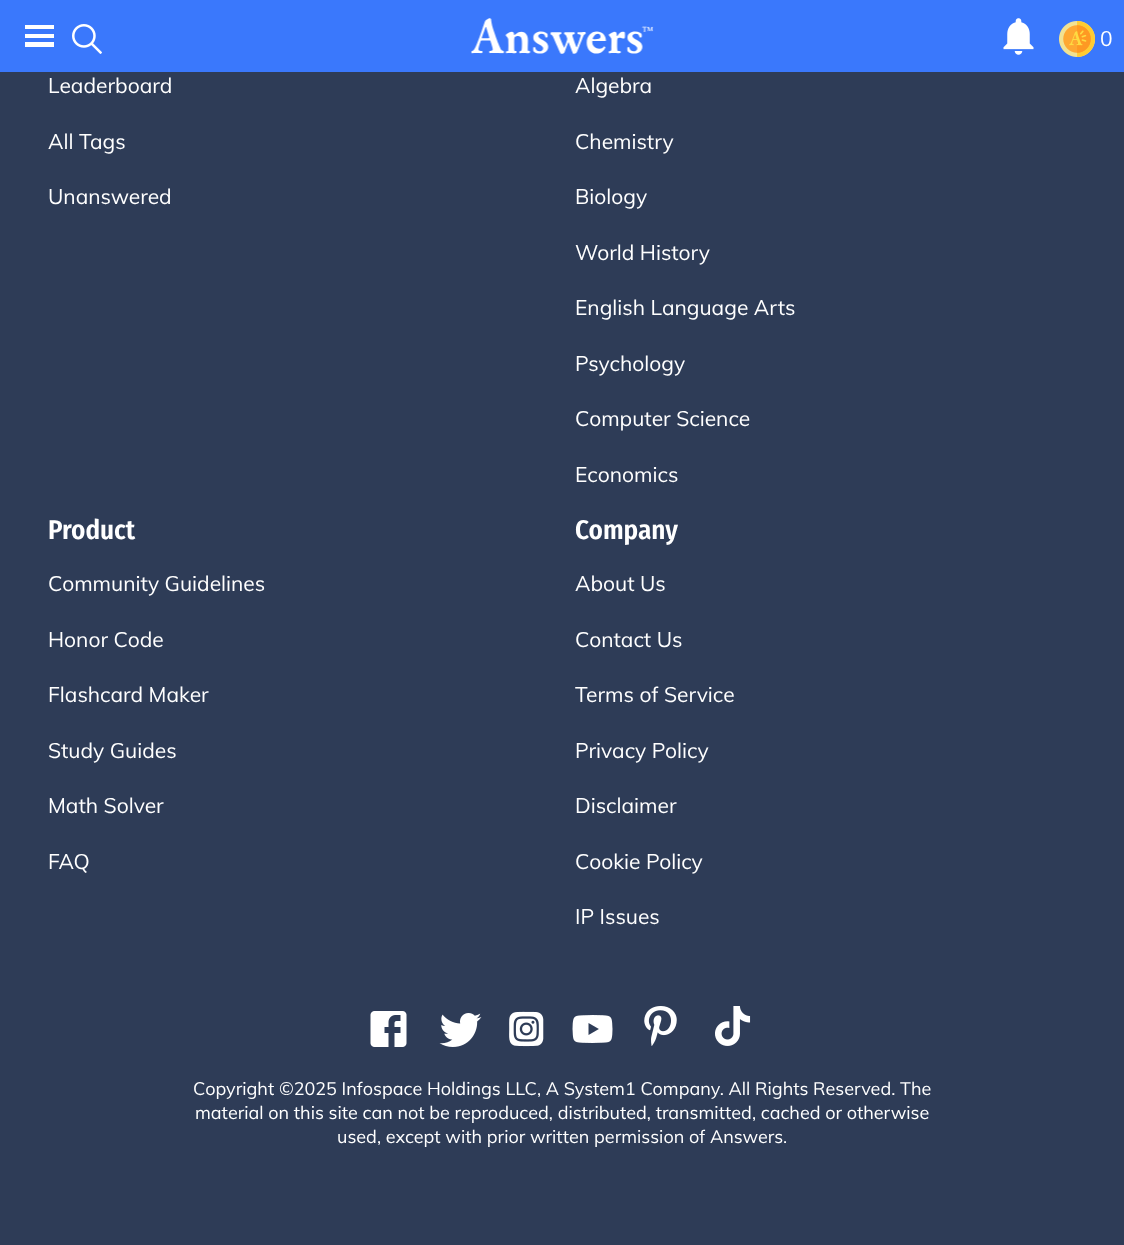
<svg xmlns="http://www.w3.org/2000/svg" width="1124" height="1245">
<rect width="100%" height="100%" fill="#2e3c57"/>
<rect width="1124" height="72" fill="#3a78fc"/>
<rect x="25" y="25" width="29" height="4" fill="#fff"/>
<rect x="25" y="34" width="29" height="4" fill="#fff"/>
<rect x="25" y="42" width="29" height="5" fill="#fff"/>
<image x="72" y="24" width="30" height="30" href="media/1.png"/>
<image x="471" y="18" width="183" height="36" href="media/2.png"/>
<image x="1003" y="18" width="31" height="37" href="media/3.png"/>
<image x="1059" y="21" width="36" height="36" href="media/4.png"/>
<text x="1100" y="46" style="font-family:Muli;font-size:21px;fill:#fff">0</text>
<text x="48" y="93" style="font-family:Muli;font-size:21px;fill:#fff">Leaderboard</text>
<text x="48" y="149" style="font-family:Muli;font-size:21px;fill:#fff">All Tags</text>
<text x="48" y="204" style="font-family:Muli;font-size:21px;fill:#fff">Unanswered</text>
<text x="575" y="93" style="font-family:Muli;font-size:21px;fill:#fff">Algebra</text>
<text x="575" y="149" style="font-family:Muli;font-size:21px;fill:#fff">Chemistry</text>
<text x="575" y="204" style="font-family:Muli;font-size:21px;fill:#fff">Biology</text>
<text x="575" y="260" style="font-family:Muli;font-size:21px;fill:#fff">World History</text>
<text x="575" y="315" style="font-family:Muli;font-size:21px;fill:#fff">English Language Arts</text>
<text x="575" y="371" style="font-family:Muli;font-size:21px;fill:#fff">Psychology</text>
<text x="575" y="426" style="font-family:Muli;font-size:21px;fill:#fff">Computer Science</text>
<text x="575" y="482" style="font-family:Muli;font-size:21px;fill:#fff">Economics</text>
<text x="48" y="539" style="font-family:Fira Sans Condensed;font-size:27px;font-weight:600;fill:#fff">Product</text>
<text x="48" y="591" style="font-family:Muli;font-size:21px;fill:#fff">Community Guidelines</text>
<text x="48" y="647" style="font-family:Muli;font-size:21px;fill:#fff">Honor Code</text>
<text x="48" y="702" style="font-family:Muli;font-size:21px;fill:#fff">Flashcard Maker</text>
<text x="48" y="758" style="font-family:Muli;font-size:21px;fill:#fff">Study Guides</text>
<text x="48" y="813" style="font-family:Muli;font-size:21px;fill:#fff">Math Solver</text>
<text x="48" y="869" style="font-family:Muli;font-size:21px;fill:#fff">FAQ</text>
<text x="575" y="539" style="font-family:Fira Sans Condensed;font-size:27px;font-weight:600;fill:#fff">Company</text>
<text x="575" y="591" style="font-family:Muli;font-size:21px;fill:#fff">About Us</text>
<text x="575" y="647" style="font-family:Muli;font-size:21px;fill:#fff">Contact Us</text>
<text x="575" y="702" style="font-family:Muli;font-size:21px;fill:#fff">Terms of Service</text>
<text x="575" y="758" style="font-family:Muli;font-size:21px;fill:#fff">Privacy Policy</text>
<text x="575" y="813" style="font-family:Muli;font-size:21px;fill:#fff">Disclaimer</text>
<text x="575" y="869" style="font-family:Muli;font-size:21px;fill:#fff">Cookie Policy</text>
<text x="575" y="924" style="font-family:Muli;font-size:21px;fill:#fff">IP Issues</text>
<image x="370" y="1011" width="37" height="36" href="media/5.png"/>
<image x="439" y="1013" width="43" height="34" href="media/6.png"/>
<image x="509" y="1011" width="35" height="36" href="media/7.png"/>
<image x="572" y="1015" width="41" height="28" href="media/8.png"/>
<image x="644" y="1006" width="33" height="40" href="media/9.png"/>
<image x="715" y="1006" width="36" height="40" href="media/10.png"/>
<text x="193" y="1095" style="font-family:Muli;font-size:18px;fill:#fff">Copyright ©2025 Infospace Holdings LLC, A System1 Company. All Rights Reserved. The</text>
<text x="195" y="1119" style="font-family:Muli;font-size:18px;fill:#fff">material on this site can not be reproduced, distributed, transmitted, cached or otherwise</text>
<text x="337" y="1143" style="font-family:Muli;font-size:18px;fill:#fff">used, except with prior written permission of Answers.</text>
</svg>
